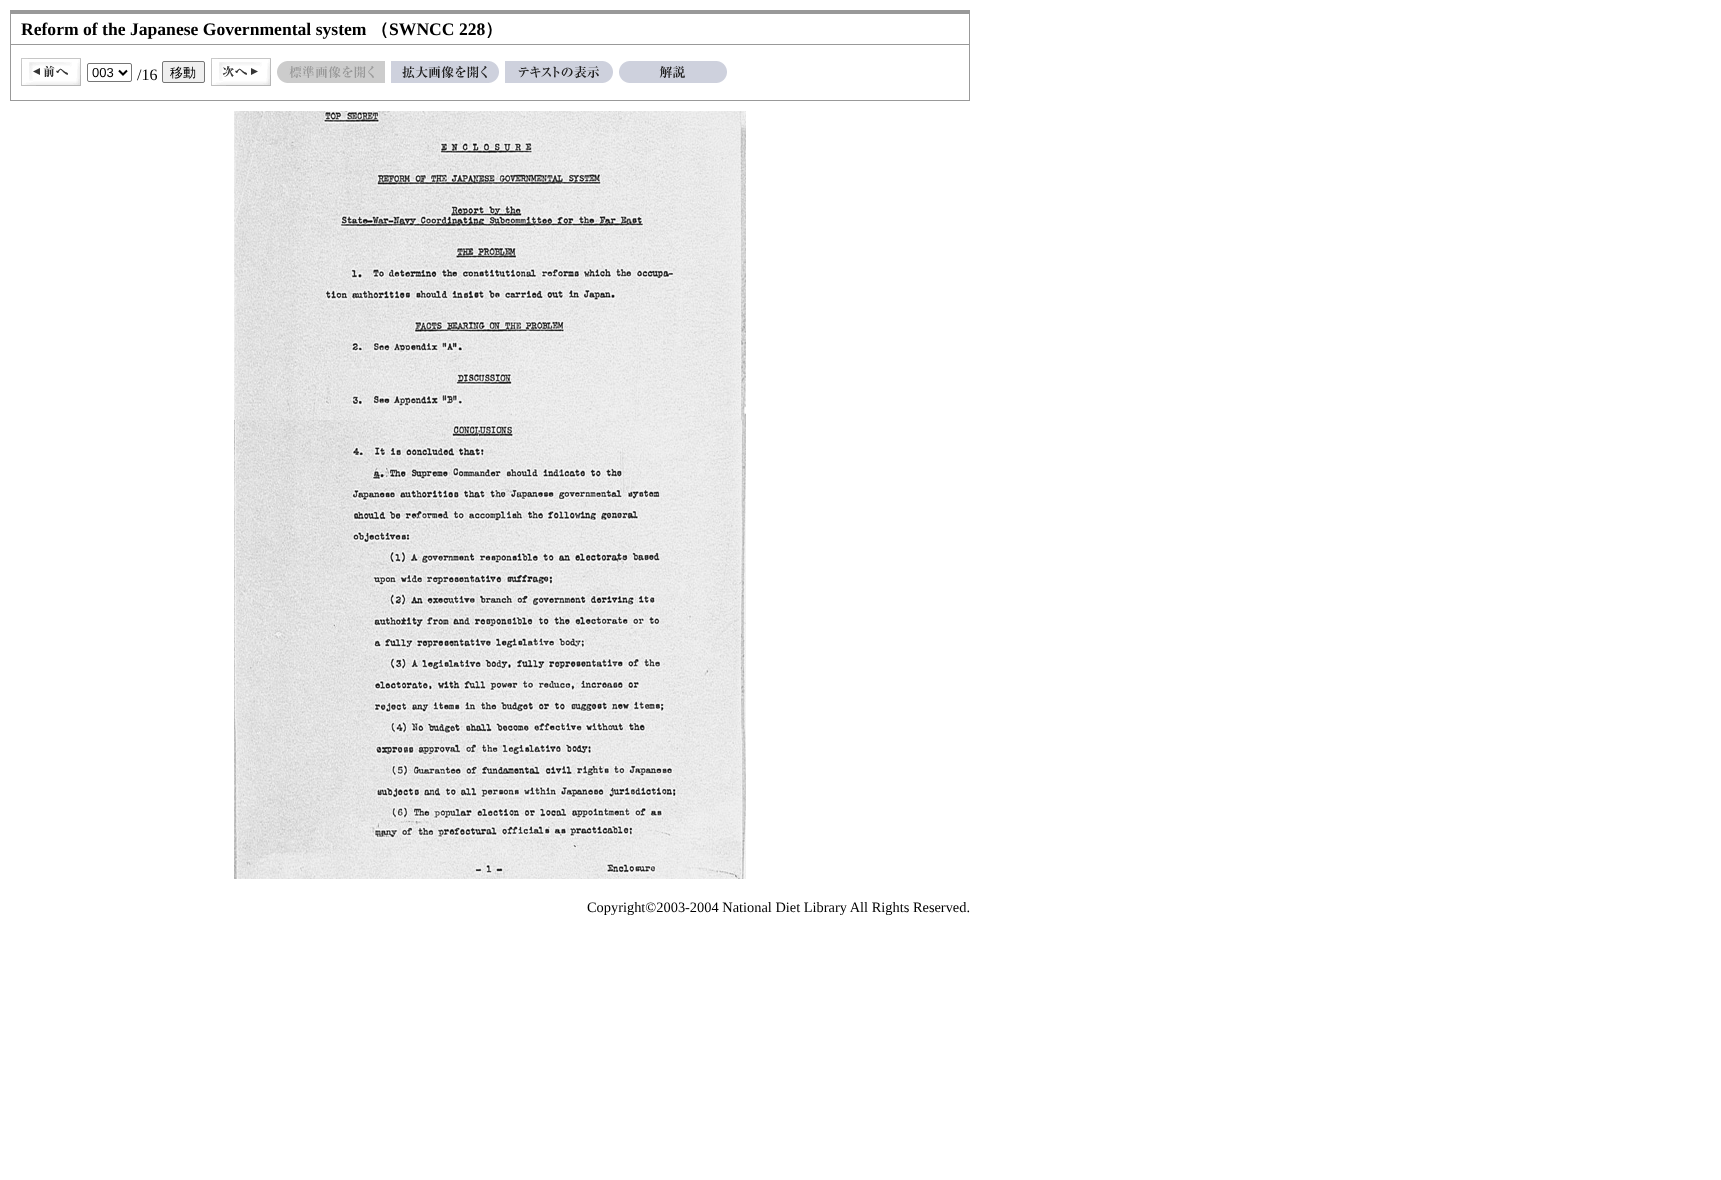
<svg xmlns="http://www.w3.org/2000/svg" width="1721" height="1180">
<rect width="100%" height="100%" fill="#fff"/>
<rect x="10" y="10" width="960" height="4" fill="#999"/>
<rect x="969" y="10" width="1" height="34" fill="#999"/>
<rect x="10" y="10" width="1" height="34" fill="#999"/>
<text x="21" y="35" style="font-family:Liberation Serif;font-size:17.6px;font-weight:bold;fill:#000">Reform of the Japanese Governmental system</text>
<text x="371" y="35" style="font-family:WenQuanYi Zen Hei;font-size:17.6px;font-weight:bold;fill:#000">（</text>
<text x="389" y="35" style="font-family:Liberation Serif;font-size:17.6px;font-weight:bold;fill:#000">SWNCC 228</text>
<text x="485" y="35" style="font-family:WenQuanYi Zen Hei;font-size:17.6px;font-weight:bold;fill:#000">）</text>
<rect x="10.5" y="44.5" width="959" height="56" fill="none" stroke="#999"/>
<image x="21" y="58" width="60" height="28" href="media/1.png"/>
<rect x="87.5" y="63.5" width="44" height="18" rx="1.5" fill="none" stroke="#767676"/>
<path d="M119 70.5l4 4l4-4" fill="none" stroke="#000" stroke-width="2"/>
<text x="92" y="77" style="font-family:Liberation Sans;font-size:13px;fill:#000">003</text>
<text x="137" y="80" style="font-family:Liberation Serif;font-size:16px;fill:#000">/16</text>
<rect x="162.5" y="61.5" width="42" height="21" rx="1.5" fill="#efefef" stroke="#767676"/>
<text x="170" y="77" style="font-family:WenQuanYi Zen Hei;font-size:13px;font-weight:500;fill:#000">移動</text>
<image x="211" y="58" width="60" height="28" href="media/2.png"/>
<image x="277" y="61" width="108" height="22" href="media/3.png"/>
<image x="391" y="61" width="108" height="22" href="media/4.png"/>
<image x="505" y="61" width="108" height="22" href="media/5.png"/>
<image x="619" y="61" width="108" height="22" href="media/6.png"/>
<image x="234" y="111" width="512" height="768" href="media/7.png"/>
<text x="587" y="912" style="font-family:Liberation Serif;font-size:14.4px;fill:#000">Copyright©2003-2004 National Diet Library All Rights Reserved.</text>
</svg>
